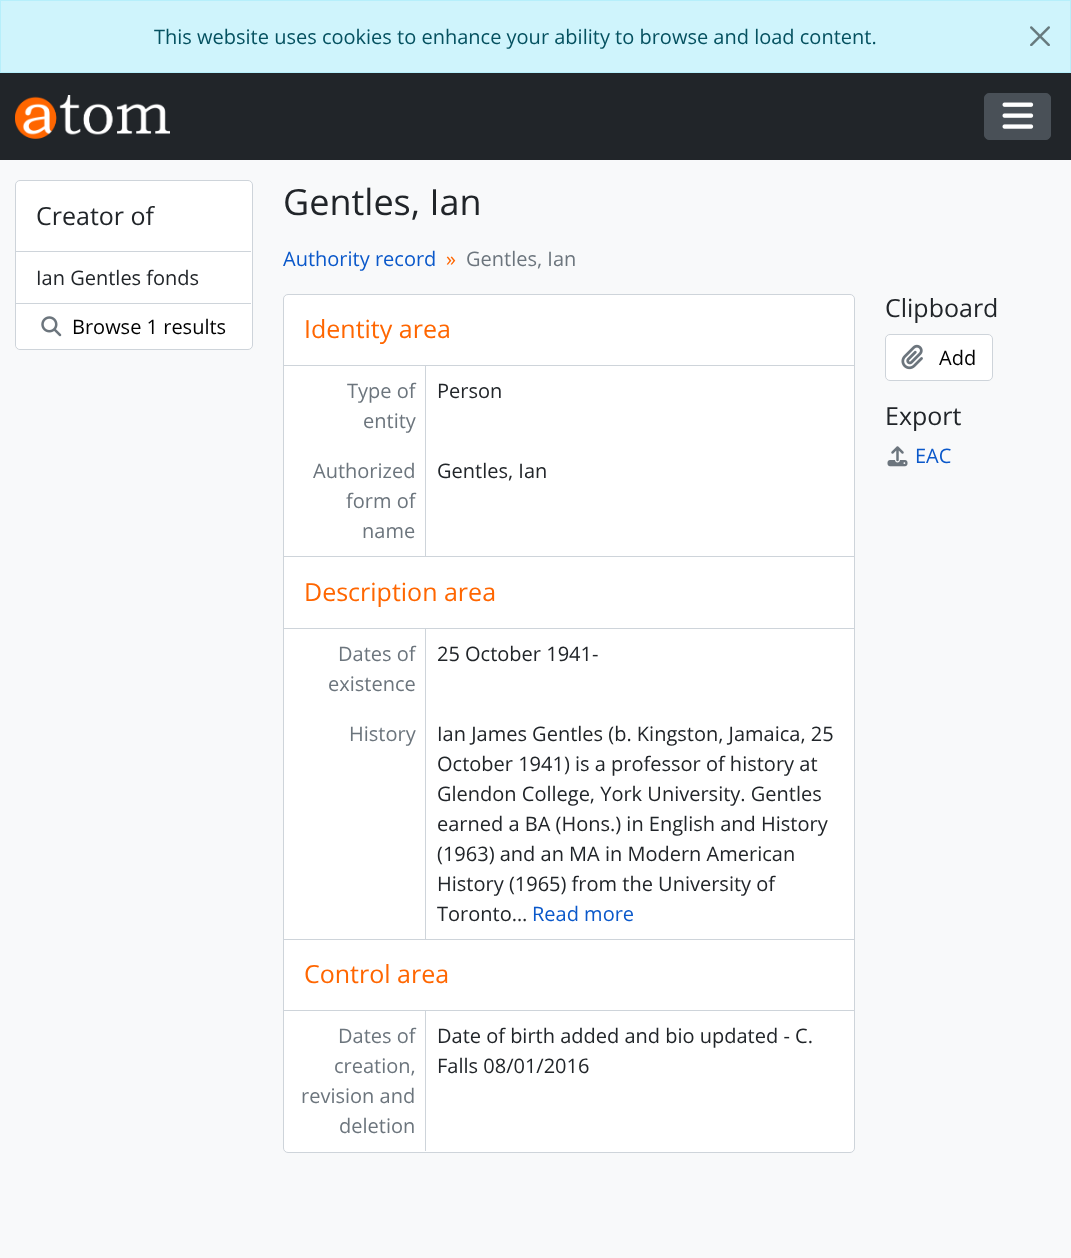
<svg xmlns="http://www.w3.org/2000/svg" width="1071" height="1258">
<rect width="100%" height="100%" fill="#f8f9fa"/>
<rect x="0.5" y="0.5" width="1070" height="72" fill="#cff4fc" stroke="#b6effb"/>
<text x="154" y="44" style="font-family:Open Sans;font-size:20px;fill:#055160">This website uses cookies to enhance your ability to browse and load content.</text>
<image x="1030" y="26" width="20" height="20" href="media/1.png"/>
<rect y="73" width="1071" height="87" fill="#212529"/>
<image x="15" y="95" width="155" height="44" href="media/2.png"/>
<rect x="984.5" y="93.5" width="66" height="46" rx="4.5" fill="#495057" stroke="#495057"/>
<image x="1002" y="102" width="32" height="27" href="media/3.png"/>
<rect x="15.5" y="180.5" width="237" height="169" rx="4.5" fill="#fff" stroke="#ced4da"/>
<text x="36" y="225" style="font-family:Open Sans;font-size:25px;fill:#212529">Creator of</text>
<rect x="16" y="251" width="235" height="1" fill="#ced4da"/>
<rect x="16" y="303" width="235" height="1" fill="#ced4da"/>
<text x="36" y="285" style="font-family:Open Sans;font-size:20px;fill:#212529">Ian Gentles fonds</text>
<rect x="16" y="304" width="235" height="45" rx="5" fill="#fff"/>
<image x="41" y="316" width="21" height="21" href="media/4.png"/>
<text x="72" y="334" style="font-family:Open Sans;font-size:20px;fill:#000">Browse 1 results</text>
<text x="283" y="215" style="font-family:Open Sans;font-size:36px;fill:#212529">Gentles, Ian</text>
<text x="283" y="266" style="font-family:Open Sans;font-size:20px;fill:#0a58ca">Authority record</text>
<text x="446" y="266" style="font-family:Open Sans;font-size:20px;fill:#f60">»</text>
<text x="466" y="266" style="font-family:Open Sans;font-size:20px;fill:#6c757d">Gentles, Ian</text>
<rect x="283.5" y="294.5" width="571" height="858" rx="4.5" fill="#fff" stroke="#ced4da"/>
<rect x="284" y="556" width="570" height="1" fill="#ced4da"/>
<rect x="284" y="365" width="570" height="1" fill="#ced4da"/>
<text x="304" y="338" style="font-family:Open Sans;font-size:25px;fill:#f60">Identity area</text>
<rect x="425" y="366" width="1" height="190" fill="#ced4da"/>
<text x="347" y="398" style="font-family:Open Sans;font-size:20px;fill:#6c757d">Type of</text>
<text x="363" y="428" style="font-family:Open Sans;font-size:20px;fill:#6c757d">entity</text>
<text x="437" y="398" style="font-family:Open Sans;font-size:20px;fill:#212529">Person</text>
<text x="313" y="478" style="font-family:Open Sans;font-size:20px;fill:#6c757d">Authorized</text>
<text x="346" y="508" style="font-family:Open Sans;font-size:20px;fill:#6c757d">form of</text>
<text x="362" y="538" style="font-family:Open Sans;font-size:20px;fill:#6c757d">name</text>
<text x="437" y="478" style="font-family:Open Sans;font-size:20px;fill:#212529">Gentles, Ian</text>
<rect x="284" y="939" width="570" height="1" fill="#ced4da"/>
<rect x="284" y="628" width="570" height="1" fill="#ced4da"/>
<text x="304" y="601" style="font-family:Open Sans;font-size:25px;fill:#f60">Description area</text>
<rect x="425" y="629" width="1" height="310" fill="#ced4da"/>
<text x="338" y="661" style="font-family:Open Sans;font-size:20px;fill:#6c757d">Dates of</text>
<text x="328" y="691" style="font-family:Open Sans;font-size:20px;fill:#6c757d">existence</text>
<text x="437" y="661" style="font-family:Open Sans;font-size:20px;fill:#212529">25 October 1941-</text>
<text x="349" y="741" style="font-family:Open Sans;font-size:20px;fill:#6c757d">History</text>
<text x="437" y="741" style="font-family:Open Sans;font-size:20px;fill:#212529">Ian James Gentles (b. Kingston, Jamaica, 25</text>
<text x="437" y="771" style="font-family:Open Sans;font-size:20px;fill:#212529">October 1941) is a professor of history at</text>
<text x="437" y="801" style="font-family:Open Sans;font-size:20px;fill:#212529">Glendon College, York University. Gentles</text>
<text x="437" y="831" style="font-family:Open Sans;font-size:20px;fill:#212529">earned a BA (Hons.) in English and History</text>
<text x="437" y="861" style="font-family:Open Sans;font-size:20px;fill:#212529">(1963) and an MA in Modern American</text>
<text x="437" y="891" style="font-family:Open Sans;font-size:20px;fill:#212529">History (1965) from the University of</text>
<text x="437" y="921" style="font-family:Open Sans;font-size:20px;fill:#212529">Toronto…</text>
<text x="532" y="921" style="font-family:Open Sans;font-size:20px;fill:#0a58ca">Read more</text>
<rect x="284" y="1010" width="570" height="1" fill="#ced4da"/>
<text x="304" y="983" style="font-family:Open Sans;font-size:25px;fill:#f60">Control area</text>
<rect x="425" y="1011" width="1" height="140" fill="#ced4da"/>
<text x="338" y="1043" style="font-family:Open Sans;font-size:20px;fill:#6c757d">Dates of</text>
<text x="334" y="1073" style="font-family:Open Sans;font-size:20px;fill:#6c757d">creation,</text>
<text x="301" y="1103" style="font-family:Open Sans;font-size:20px;fill:#6c757d">revision and</text>
<text x="339" y="1133" style="font-family:Open Sans;font-size:20px;fill:#6c757d">deletion</text>
<text x="437" y="1043" style="font-family:Open Sans;font-size:20px;fill:#212529">Date of birth added and bio updated - C.</text>
<text x="437" y="1073" style="font-family:Open Sans;font-size:20px;fill:#212529">Falls 08/01/2016</text>
<text x="885" y="317" style="font-family:Open Sans;font-size:25px;fill:#212529">Clipboard</text>
<rect x="885.5" y="334.5" width="107" height="46" rx="4.5" fill="#fff" stroke="#ced4da"/>
<image x="901" y="344" width="22" height="26" href="media/5.png"/>
<text x="939" y="365" style="font-family:Open Sans;font-size:20px;fill:#000">Add</text>
<text x="885" y="425" style="font-family:Open Sans;font-size:25px;fill:#212529">Export</text>
<image x="887" y="446" width="21" height="21" href="media/6.png"/>
<text x="915" y="463" style="font-family:Open Sans;font-size:20px;fill:#0a58ca">EAC</text>
</svg>
